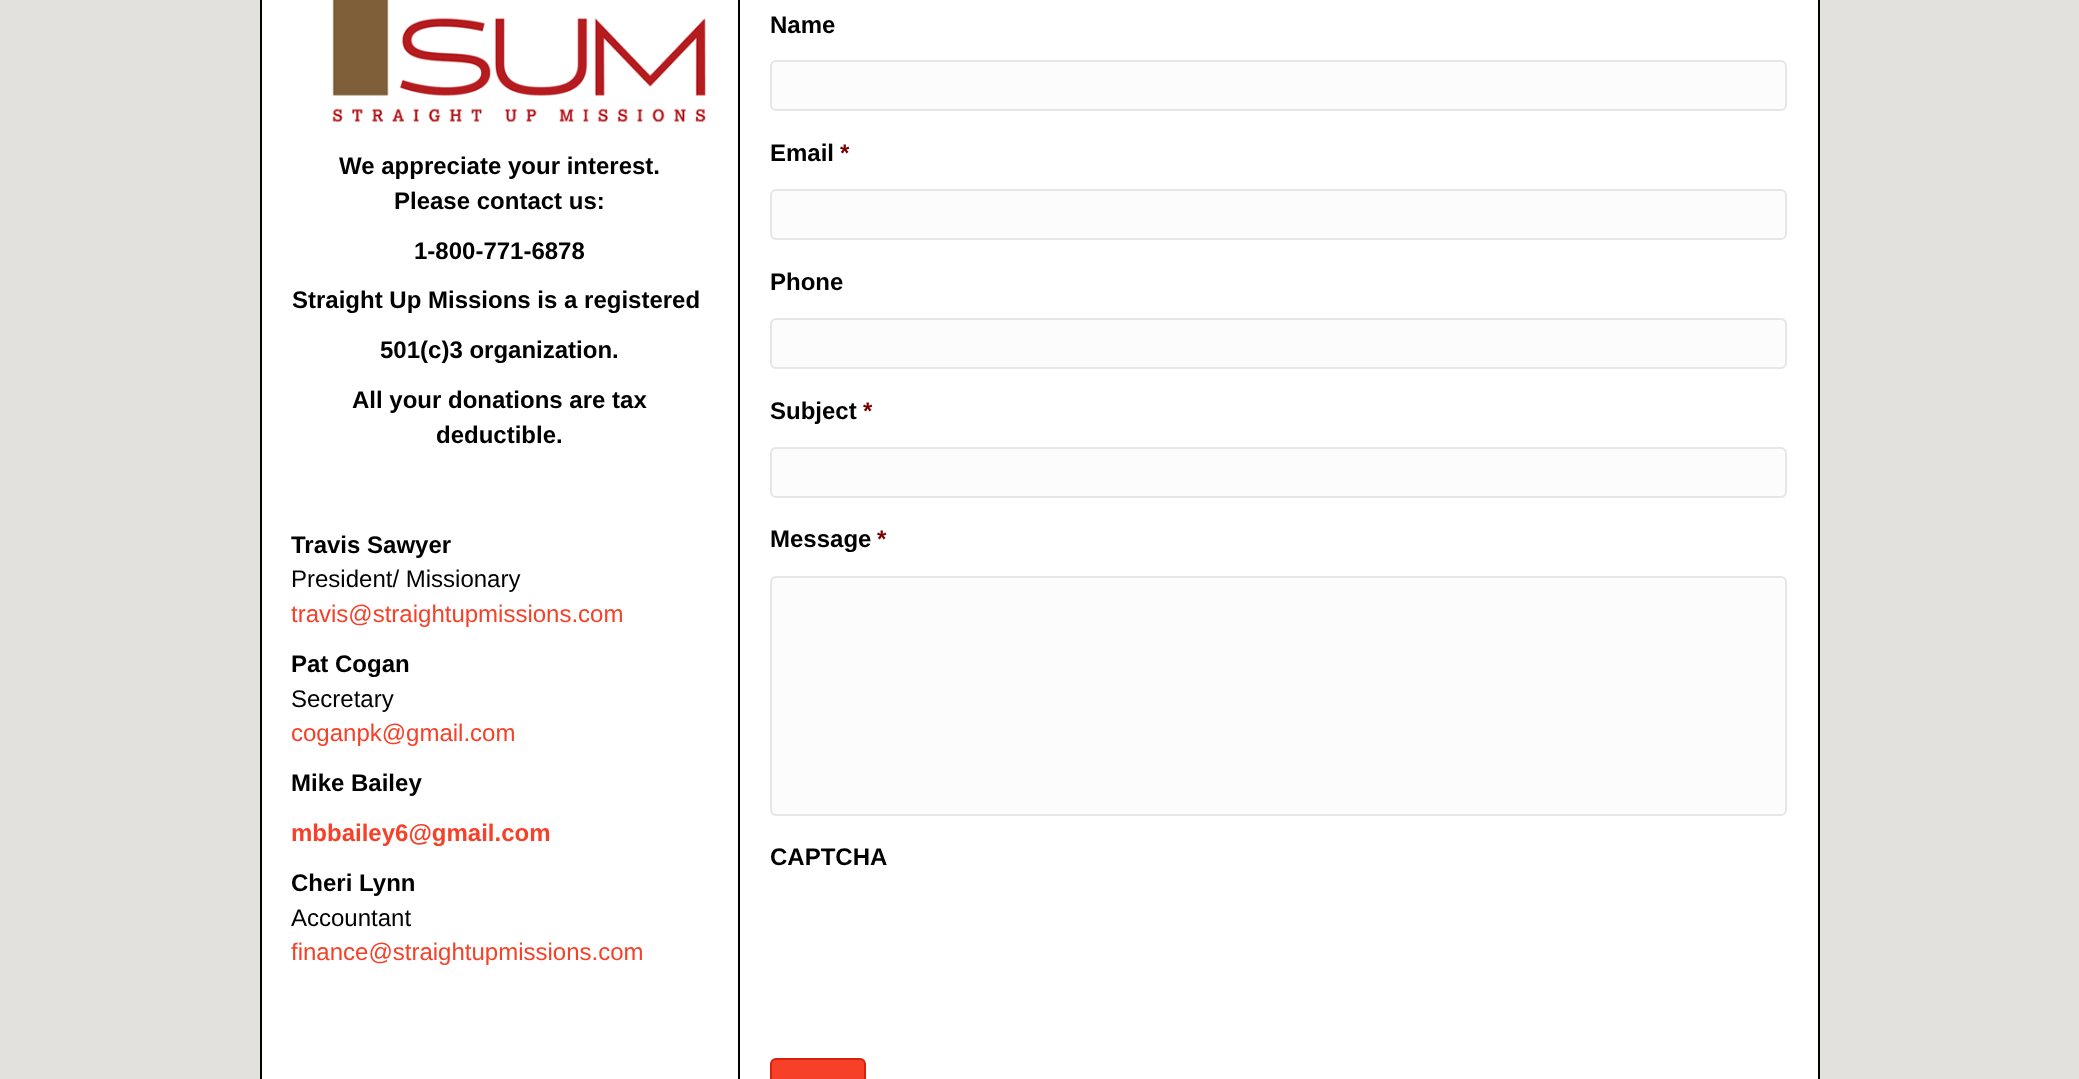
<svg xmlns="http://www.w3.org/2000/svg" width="2079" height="1079">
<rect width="100%" height="100%" fill="#e2e1dd"/>
<rect x="262" width="1556" height="1079" fill="#fff"/>
<rect x="1818" width="2" height="1079" fill="#000"/>
<rect x="260" width="2" height="1079" fill="#000"/>
<rect x="738" width="2" height="1079" fill="#000"/>
<image x="332" y="0" width="374" height="122" href="media/1.png"/>
<text x="339" y="174" style="font-family:Liberation Sans;font-size:24px;font-weight:bold;fill:#000">We appreciate your interest.</text>
<text x="394" y="209" style="font-family:Liberation Sans;font-size:24px;font-weight:bold;fill:#000">Please contact us:</text>
<text x="414" y="259" style="font-family:Liberation Sans;font-size:24px;font-weight:bold;fill:#000">1-800-771-6878</text>
<text x="292" y="308" style="font-family:Liberation Sans;font-size:24px;font-weight:bold;fill:#000">Straight Up Missions is a registered</text>
<text x="380" y="358" style="font-family:Liberation Sans;font-size:24px;font-weight:bold;fill:#000">501(c)3 organization.</text>
<text x="352" y="408" style="font-family:Liberation Sans;font-size:24px;font-weight:bold;fill:#000">All your donations are tax</text>
<text x="436" y="443" style="font-family:Liberation Sans;font-size:24px;font-weight:bold;fill:#000">deductible.</text>
<text x="291" y="553" style="font-family:Liberation Sans;font-size:24px;font-weight:bold;fill:#000">Travis Sawyer</text>
<text x="291" y="587" style="font-family:Liberation Sans;font-size:24px;fill:#000">President/ Missionary</text>
<text x="291" y="622" style="font-family:Liberation Sans;font-size:24px;fill:#f64028">travis@straightupmissions.com</text>
<text x="291" y="672" style="font-family:Liberation Sans;font-size:24px;font-weight:bold;fill:#000">Pat Cogan</text>
<text x="291" y="707" style="font-family:Liberation Sans;font-size:24px;fill:#000">Secretary</text>
<text x="291" y="741" style="font-family:Liberation Sans;font-size:24px;fill:#f64028">coganpk@gmail.com</text>
<text x="291" y="791" style="font-family:Liberation Sans;font-size:24px;font-weight:bold;fill:#000">Mike Bailey</text>
<text x="291" y="841" style="font-family:Liberation Sans;font-size:24px;font-weight:bold;fill:#f64028">mbbailey6@gmail.com</text>
<text x="291" y="891" style="font-family:Liberation Sans;font-size:24px;font-weight:bold;fill:#000">Cheri Lynn</text>
<text x="291" y="926" style="font-family:Liberation Sans;font-size:24px;fill:#000">Accountant</text>
<text x="291" y="960" style="font-family:Liberation Sans;font-size:24px;fill:#f64028">finance@straightupmissions.com</text>
<text x="770" y="33" style="font-family:Liberation Sans;font-size:24px;font-weight:bold;fill:#000">Name</text>
<rect x="771" y="61" width="1015" height="49" rx="5" fill="#fcfcfc" stroke="#e6e6e6" stroke-width="2"/>
<text x="770" y="161" style="font-family:Liberation Sans;font-size:24px;font-weight:bold;fill:#000">Email</text>
<text x="840" y="161" style="font-family:Liberation Sans;font-size:24px;font-weight:bold;fill:#790000">*</text>
<rect x="771" y="190" width="1015" height="49" rx="5" fill="#fcfcfc" stroke="#e6e6e6" stroke-width="2"/>
<text x="770" y="290" style="font-family:Liberation Sans;font-size:24px;font-weight:bold;fill:#000">Phone</text>
<rect x="771" y="319" width="1015" height="49" rx="5" fill="#fcfcfc" stroke="#e6e6e6" stroke-width="2"/>
<text x="770" y="419" style="font-family:Liberation Sans;font-size:24px;font-weight:bold;fill:#000">Subject</text>
<text x="863" y="419" style="font-family:Liberation Sans;font-size:24px;font-weight:bold;fill:#790000">*</text>
<rect x="771" y="448" width="1015" height="49" rx="5" fill="#fcfcfc" stroke="#e6e6e6" stroke-width="2"/>
<text x="770" y="547" style="font-family:Liberation Sans;font-size:24px;font-weight:bold;fill:#000">Message</text>
<text x="877" y="547" style="font-family:Liberation Sans;font-size:24px;font-weight:bold;fill:#790000">*</text>
<rect x="771" y="577" width="1015" height="238" rx="5" fill="#fcfcfc" stroke="#e6e6e6" stroke-width="2"/>
<text x="770" y="865" style="font-family:Liberation Sans;font-size:24px;font-weight:bold;fill:#000">CAPTCHA</text>
<rect x="771" y="1059" width="94" height="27" rx="5" fill="#f64028" stroke="#d82109" stroke-width="2"/>
</svg>
